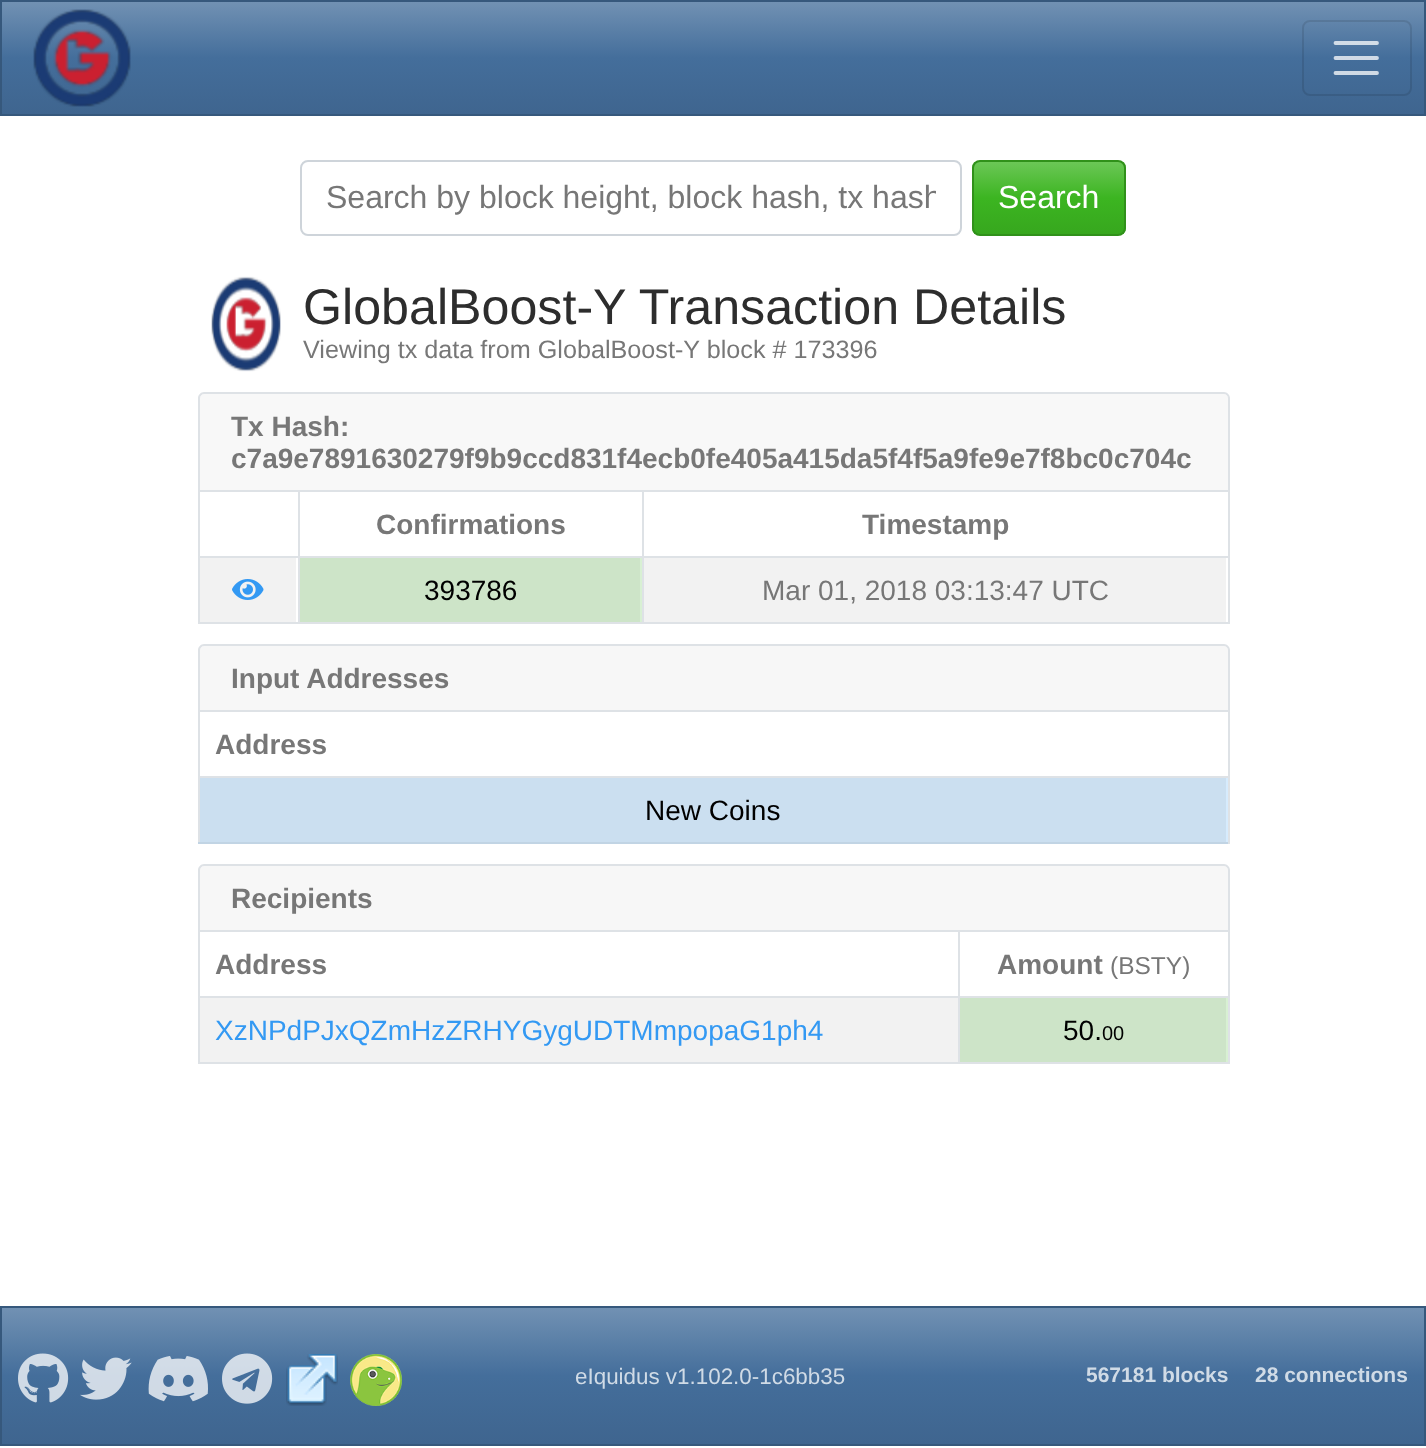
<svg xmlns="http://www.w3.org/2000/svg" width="1426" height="1448">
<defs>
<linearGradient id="g1" gradientUnits="userSpaceOnUse" x1="713" y1="2" x2="713" y2="114"><stop offset="0" stop-color="#7191b3"/><stop offset="0.5" stop-color="#446e9b"/><stop offset="1" stop-color="#3f658f"/></linearGradient>
<clipPath id="clip1"><rect x="326" y="180" width="610" height="36"/></clipPath>
<clipPath id="clip2"><rect x="972" y="160" width="154" height="76" rx="8"/></clipPath>
<linearGradient id="g2" gradientUnits="userSpaceOnUse" x1="1049" y1="162" x2="1049" y2="234"><stop offset="0" stop-color="#6bc756"/><stop offset="0.5" stop-color="#3cb521"/><stop offset="1" stop-color="#37a71e"/></linearGradient>
<linearGradient id="g3" gradientUnits="userSpaceOnUse" x1="713" y1="1308" x2="713" y2="1444"><stop offset="0" stop-color="#7191b3"/><stop offset="0.5" stop-color="#446e9b"/><stop offset="1" stop-color="#3f658f"/></linearGradient>
</defs>
<rect width="100%" height="100%" fill="#fff"/>
<rect x="2" y="2" width="1422" height="112" fill="url(#g1)"/>
<rect x="1" y="1" width="1424" height="114" fill="none" stroke="#36587c" stroke-width="2"/>
<image x="33" y="9" width="98" height="98" href="media/1.png"/>
<rect x="1303" y="21" width="108" height="74" rx="7" fill="none" stroke="#0000001a" stroke-width="2"/>
<path d="M1335.5 43h41.5m-41.5 15h41.5m-41.5 15h41.5" fill="none" stroke="#ffffffbf" stroke-width="3.8" stroke-linecap="round"/>
<rect x="301" y="161" width="660" height="74" rx="7" fill="none" stroke="#ced4da" stroke-width="2"/>
<g clip-path="url(#clip1)">
<text x="326" y="208" style="font-family:Liberation Sans;font-size:32px;fill:#777">Search by block height, block hash, tx hash</text>
</g>
<g clip-path="url(#clip2)">
<rect x="972" y="162" width="154" height="72" fill="url(#g2)"/>
</g>
<rect x="973" y="161" width="152" height="74" rx="7" fill="none" stroke="#30911a" stroke-width="2"/>
<text x="998" y="208" style="font-family:Liberation Sans;font-size:32px;fill:#fff">Search</text>
<image x="211" y="276" width="70" height="96" href="media/2.png"/>
<text x="303" y="324" style="font-family:Liberation Sans;font-size:50.2px;fill:#2d2d2d">GlobalBoost-Y Transaction Details</text>
<text x="303" y="358" style="font-family:Liberation Sans;font-size:25.2px;fill:#777">Viewing tx data from GlobalBoost-Y block # 173396</text>
<path d="M204 394h1020c2 0 4 2 4 4v92h-1028v-92c0-2 2-4 4-4z" fill="#f8f8f8"/>
<path d="M204 392h1020c3 0 6 3 6 6v92h-1032v-92c0-3 3-6 6-6zm0 2h1020c2 0 4 2 4 4v92h-1028v-92c0-2 2-4 4-4z" fill="#dee2e6" fill-rule="evenodd"/>
<text x="231" y="436" style="font-family:Liberation Sans;font-size:28px;font-weight:bold;fill:#777">Tx Hash:</text>
<text x="231" y="468" style="font-family:Liberation Sans;font-size:28px;font-weight:bold;fill:#777">c7a9e7891630279f9b9ccd831f4ecb0fe405a415da5f4f5a9fe9e7f8bc0c704c</text>
<rect x="198" y="490" width="1032" height="2" fill="#dee2e6"/>
<rect x="1228" y="490" width="2" height="134" fill="#dee2e6"/>
<rect x="198" y="622" width="1032" height="2" fill="#dee2e6"/>
<rect x="198" y="490" width="2" height="134" fill="#dee2e6"/>
<rect x="198" y="556" width="1032" height="2" fill="#dee2e6"/>
<text x="376" y="534" style="font-family:Liberation Sans;font-size:28px;font-weight:bold;fill:#777">Confirmations</text>
<text x="862" y="534" style="font-family:Liberation Sans;font-size:28px;font-weight:bold;fill:#777">Timestamp</text>
<rect x="200" y="558" width="96" height="64" fill="#f2f2f2"/>
<rect x="298" y="490" width="2" height="134" fill="#dee2e6"/>
<image x="232" y="579" width="32" height="21" href="media/3.png"/>
<rect x="640" y="558" width="2" height="64" fill="#d8f0d3"/>
<rect x="300" y="558" width="340" height="64" fill="#cde4c8"/>
<rect x="642" y="490" width="2" height="134" fill="#dee2e6"/>
<text x="424" y="600" style="font-family:Liberation Sans;font-size:28px;fill:#000">393786</text>
<rect x="644" y="558" width="582" height="64" fill="#f2f2f2"/>
<text x="762" y="600" style="font-family:Liberation Sans;font-size:28px;fill:#777">Mar 01, 2018 03:13:47 UTC</text>
<path d="M204 646h1020c2 0 4 2 4 4v60h-1028v-60c0-2 2-4 4-4z" fill="#f7f7f7"/>
<path d="M204 644h1020c3 0 6 3 6 6v60h-1032v-60c0-3 3-6 6-6zm0 2h1020c2 0 4 2 4 4v60h-1028v-60c0-2 2-4 4-4z" fill="#dee2e6" fill-rule="evenodd"/>
<text x="231" y="688" style="font-family:Liberation Sans;font-size:28px;font-weight:bold;fill:#777">Input Addresses</text>
<rect x="198" y="710" width="1032" height="2" fill="#dee2e6"/>
<rect x="1228" y="710" width="2" height="66" fill="#dee2e6"/>
<rect x="198" y="710" width="2" height="134" fill="#dee2e6"/>
<rect x="198" y="776" width="1032" height="2" fill="#dee2e6"/>
<text x="215" y="754" style="font-family:Liberation Sans;font-size:28px;font-weight:bold;fill:#777">Address</text>
<rect x="198" y="842" width="1032" height="2" fill="#c1d4e4"/>
<rect x="1226" y="778" width="2" height="64" fill="#d6ebfd"/>
<rect x="200" y="778" width="1026" height="64" fill="#cbdff0"/>
<rect x="1228" y="776" width="2" height="68" fill="#dee2e6"/>
<text x="645" y="820" style="font-family:Liberation Sans;font-size:28px;fill:#000">New Coins</text>
<path d="M204 866h1020c2 0 4 2 4 4v60h-1028v-60c0-2 2-4 4-4z" fill="#f7f7f7"/>
<path d="M204 864h1020c3 0 6 3 6 6v60h-1032v-60c0-3 3-6 6-6zm0 2h1020c2 0 4 2 4 4v60h-1028v-60c0-2 2-4 4-4z" fill="#dee2e6" fill-rule="evenodd"/>
<text x="231" y="908" style="font-family:Liberation Sans;font-size:28px;font-weight:bold;fill:#777">Recipients</text>
<rect x="198" y="930" width="1032" height="2" fill="#dee2e6"/>
<rect x="1228" y="930" width="2" height="134" fill="#dee2e6"/>
<rect x="198" y="1062" width="1032" height="2" fill="#dee2e6"/>
<rect x="198" y="930" width="2" height="134" fill="#dee2e6"/>
<rect x="198" y="996" width="1032" height="2" fill="#dee2e6"/>
<text x="215" y="974" style="font-family:Liberation Sans;font-size:28px;font-weight:bold;fill:#777">Address</text>
<text x="997" y="974" style="font-family:Liberation Sans;font-size:28px;font-weight:bold;fill:#777">Amount</text>
<text x="1110" y="974" style="font-family:Liberation Sans;font-size:24.5px;fill:#777">(BSTY)</text>
<rect x="200" y="998" width="758" height="64" fill="#f2f2f2"/>
<rect x="958" y="930" width="2" height="134" fill="#dee2e6"/>
<text x="215" y="1040" style="font-family:Liberation Sans;font-size:28px;fill:#3399f3">XzNPdPJxQZmHzZRHYGygUDTMmpopaG1ph4</text>
<rect x="1226" y="998" width="2" height="64" fill="#d8f0d3"/>
<rect x="960" y="998" width="266" height="64" fill="#cde4c8"/>
<text x="1063" y="1040" style="font-family:Liberation Sans;font-size:28px;fill:#000">50.</text>
<text x="1102" y="1040" style="font-family:Liberation Sans;font-size:20px;fill:#000">00</text>
<rect x="2" y="1308" width="1422" height="136" fill="url(#g3)"/>
<rect x="1" y="1307" width="1424" height="138" fill="none" stroke="#36587c" stroke-width="2"/>
<image x="18" y="1353" width="51" height="50" href="media/4.png"/>
<image x="80" y="1357" width="52" height="43" href="media/5.png"/>
<image x="148" y="1356" width="60" height="46" href="media/6.png"/>
<image x="222" y="1353" width="51" height="51" href="media/7.png"/>
<image x="286" y="1354" width="52" height="52" href="media/8.png"/>
<image x="350" y="1354" width="52" height="52" href="media/9.png"/>
<text x="575" y="1384" style="font-family:Liberation Sans;font-size:22.4px;fill:#d0dbe6">eIquidus v1.102.0-1c6bb35</text>
<text x="1086" y="1382" style="font-family:Liberation Sans;font-size:21px;font-weight:bold;fill:#d0dbe6">567181 blocks</text>
<text x="1255" y="1382" style="font-family:Liberation Sans;font-size:21px;font-weight:bold;fill:#d0dbe6">28 connections</text>
</svg>
